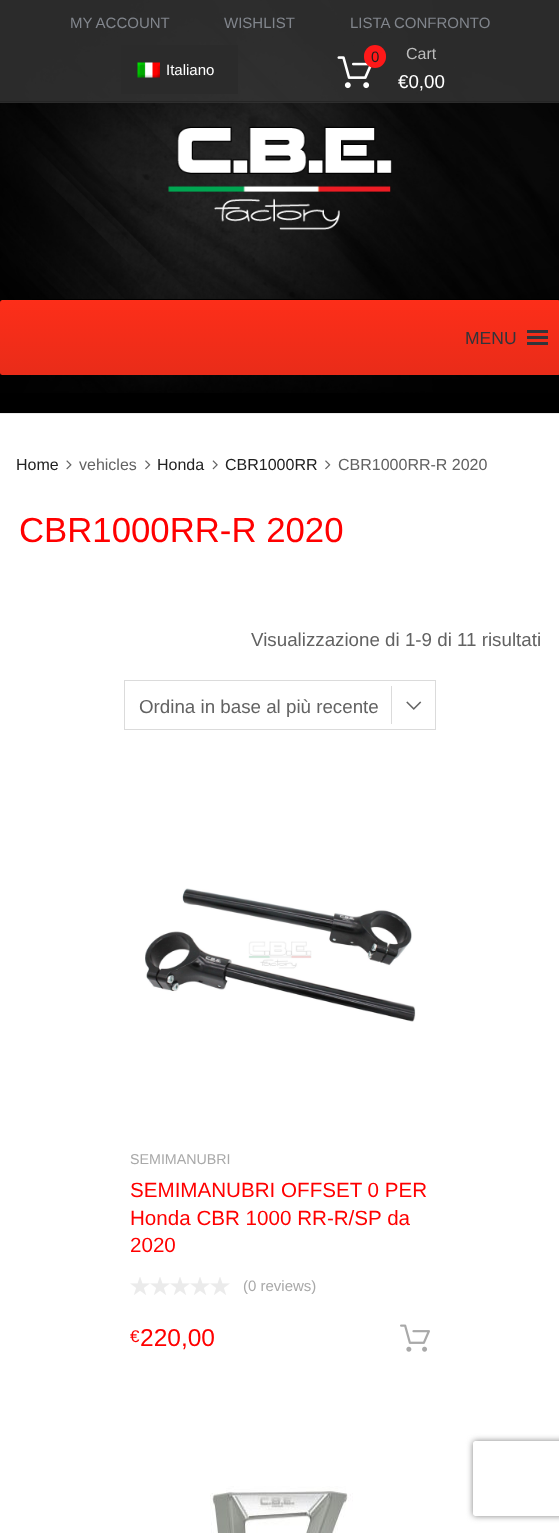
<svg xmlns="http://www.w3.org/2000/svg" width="559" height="1533">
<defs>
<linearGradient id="g1" gradientUnits="userSpaceOnUse" x1="280" y1="300" x2="280" y2="375"><stop offset="0" stop-color="#fd2e19"/><stop offset="1" stop-color="#e92c19"/></linearGradient>
<clipPath id="clip1"><path d="M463 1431h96v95h-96zm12.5 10h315c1.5 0 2.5 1 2.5 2.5v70c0 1.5-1 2.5-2.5 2.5h-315c-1.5 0-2.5-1-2.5-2.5v-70c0-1.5 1-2.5 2.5-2.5z" clip-rule="evenodd"/></clipPath>
</defs>
<rect width="100%" height="100%" fill="#fff"/>
<rect y="393" width="559" height="20" fill="#000"/>
<image x="0" y="0" width="559" height="393" href="media/1.png"/>
<rect width="559" height="103" fill="#333333d6"/>
<rect y="101" width="559" height="1" fill="#252525"/>
<text x="70" y="28" style="font-family:Liberation Sans;font-size:15px;fill:#81858c">MY ACCOUNT</text>
<text x="224" y="28" style="font-family:Liberation Sans;font-size:15px;fill:#81858c">WISHLIST</text>
<text x="350" y="28" style="font-family:Liberation Sans;font-size:15px;fill:#81858c">LISTA CONFRONTO</text>
<rect x="121" y="45" width="117" height="49" fill="#2b2b2b"/>
<image x="137" y="62" width="23" height="16" href="media/2.png"/>
<text x="166" y="75" style="font-family:Liberation Sans;font-size:15px;fill:#fff">Italiano</text>
<image x="337" y="56" width="35" height="33" href="media/3.png"/>
<rect x="364" y="45" width="22" height="23" rx="11" fill="#ff1919"/>
<text x="371" y="62" style="font-family:Liberation Sans;font-size:15px;fill:#212121">0</text>
<text x="406" y="59" style="font-family:Liberation Sans;font-size:16px;fill:#bdbdbd">Cart</text>
<text x="398" y="88" style="font-family:Liberation Sans;font-size:18.75px;fill:#fff">€0,00</text>
<image x="168" y="126" width="224" height="104" href="media/4.png"/>
<rect x="32" y="299" width="527" height="1" fill="#000"/>
<rect y="413" width="559" height="1" fill="#ebebeb"/>
<rect y="300" width="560" height="75" rx="2.5" fill="url(#g1)"/>
<text x="465" y="344" style="font-family:Liberation Sans;font-size:17.5px;fill:#31353b">MENU</text>
<image x="527" y="330" width="21" height="15" href="media/5.png"/>
<text x="16" y="470" style="font-family:Liberation Sans;font-size:16px;fill:#212121">Home</text>
<image x="66" y="460" width="6" height="10" href="media/6.png"/>
<text x="79" y="470" style="font-family:Liberation Sans;font-size:16px;fill:#626262">vehicles</text>
<image x="145" y="460" width="6" height="10" href="media/7.png"/>
<text x="157" y="470" style="font-family:Liberation Sans;font-size:16px;fill:#212121">Honda</text>
<image x="212" y="460" width="6" height="10" href="media/8.png"/>
<text x="225" y="470" style="font-family:Liberation Sans;font-size:16px;fill:#212121">CBR1000RR</text>
<image x="325" y="460" width="6" height="10" href="media/7.png"/>
<text x="338" y="470" style="font-family:Liberation Sans;font-size:16px;fill:#626262">CBR1000RR-R 2020</text>
<text x="19" y="542" style="font-family:Liberation Sans;font-size:34.75px;fill:#f00">CBR1000RR-R 2020</text>
<text x="251" y="646" style="font-family:Liberation Sans;font-size:18.75px;fill:#626262">Visualizzazione di 1-9 di 11 risultati</text>
<rect x="391" y="686" width="1" height="38" fill="#dbdbdb"/>
<image x="406" y="701" width="16" height="9" href="media/9.png"/>
<rect x="124.5" y="680.5" width="311" height="49" fill="none" stroke="#dbdbdb"/>
<text x="139" y="713" style="font-family:Liberation Sans;font-size:18.75px;fill:#626262">Ordina in base al più recente</text>
<image x="145" y="888" width="271" height="134" href="media/10.png"/>
<text x="130" y="1164" style="font-family:Liberation Sans;font-size:14.25px;fill:#a9a9a9">SEMIMANUBRI</text>
<text x="130" y="1197" style="font-family:Liberation Sans;font-size:20.6px;fill:#f00">SEMIMANUBRI OFFSET 0 PER</text>
<text x="130" y="1225" style="font-family:Liberation Sans;font-size:20.6px;fill:#f00">Honda CBR 1000 RR-R/SP da</text>
<text x="130" y="1252" style="font-family:Liberation Sans;font-size:20.6px;fill:#f00">2020</text>
<image x="130" y="1277" width="100" height="18" href="media/11.png"/>
<text x="243" y="1291" style="font-family:Liberation Sans;font-size:15px;fill:#a9a9a9">(0 reviews)</text>
<text x="130" y="1342" style="font-family:Liberation Sans;font-size:17px;fill:#f00">€</text>
<text x="140" y="1346" style="font-family:Liberation Sans;font-size:24.5px;fill:#f00">220,00</text>
<image x="400" y="1324" width="30" height="28" href="media/12.png"/>
<image x="210" y="1486" width="143" height="47" href="media/13.png"/>
<g clip-path="url(#clip1)">
<rect x="473" y="1441" width="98" height="75" rx="2.5" fill="#808080" filter="blur(3px)"/>
</g>
</svg>
